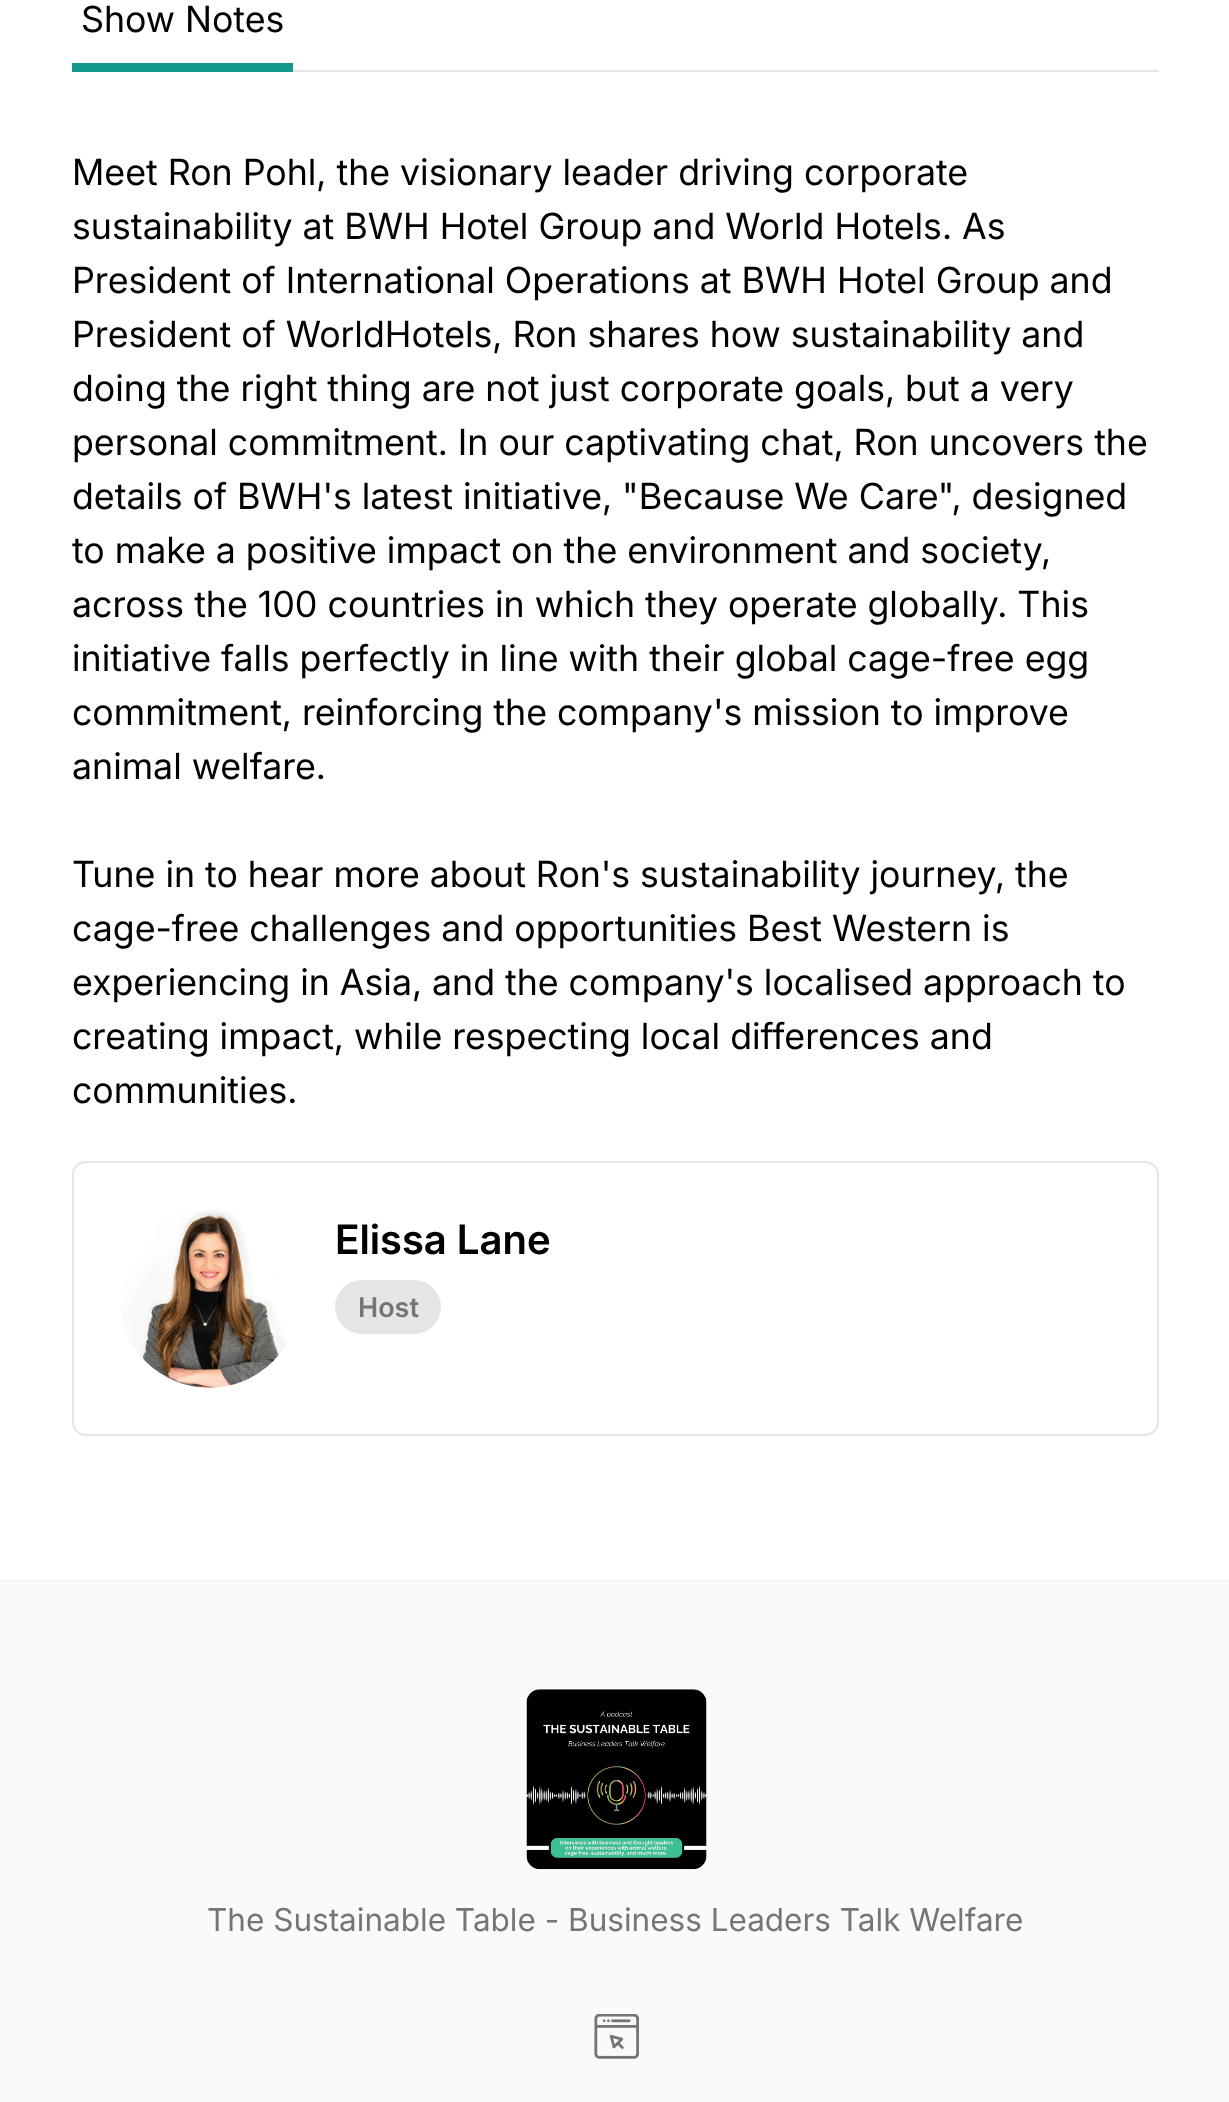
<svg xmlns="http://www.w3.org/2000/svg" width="1229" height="2102">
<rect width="100%" height="100%" fill="#fff"/>
<rect x="293" y="70" width="866" height="2" fill="#e4e5e6"/>
<rect x="72" y="63" width="221" height="9" fill="#15998e"/>
<text x="81" y="32" style="font-family:Inter;font-size:36px;fill:#000">Show Notes</text>
<text x="72" y="185" style="font-family:Inter;font-size:36px;fill:#000">Meet Ron Pohl, the visionary leader driving corporate</text>
<text x="72" y="239" style="font-family:Inter;font-size:36px;fill:#000">sustainability at BWH Hotel Group and World Hotels. As</text>
<text x="72" y="293" style="font-family:Inter;font-size:36px;fill:#000">President of International Operations at BWH Hotel Group and</text>
<text x="72" y="347" style="font-family:Inter;font-size:36px;fill:#000">President of WorldHotels, Ron shares how sustainability and</text>
<text x="72" y="401" style="font-family:Inter;font-size:36px;fill:#000">doing the right thing are not just corporate goals, but a very</text>
<text x="72" y="455" style="font-family:Inter;font-size:36px;fill:#000">personal commitment. In our captivating chat, Ron uncovers the</text>
<text x="72" y="509" style="font-family:Inter;font-size:36px;fill:#000">details of BWH's latest initiative, "Because We Care", designed</text>
<text x="72" y="563" style="font-family:Inter;font-size:36px;fill:#000">to make a positive impact on the environment and society,</text>
<text x="72" y="617" style="font-family:Inter;font-size:36px;fill:#000">across the 100 countries in which they operate globally. This</text>
<text x="72" y="671" style="font-family:Inter;font-size:36px;fill:#000">initiative falls perfectly in line with their global cage-free egg</text>
<text x="72" y="725" style="font-family:Inter;font-size:36px;fill:#000">commitment, reinforcing the company's mission to improve</text>
<text x="72" y="779" style="font-family:Inter;font-size:36px;fill:#000">animal welfare.</text>
<text x="72" y="887" style="font-family:Inter;font-size:36px;fill:#000">Tune in to hear more about Ron's sustainability journey, the</text>
<text x="72" y="941" style="font-family:Inter;font-size:36px;fill:#000">cage-free challenges and opportunities Best Western is</text>
<text x="72" y="995" style="font-family:Inter;font-size:36px;fill:#000">experiencing in Asia, and the company's localised approach to</text>
<text x="72" y="1049" style="font-family:Inter;font-size:36px;fill:#000">creating impact, while respecting local differences and</text>
<text x="72" y="1103" style="font-family:Inter;font-size:36px;fill:#000">communities.</text>
<rect x="73" y="1162" width="1085" height="273" rx="13" fill="none" stroke="#e4e5e6" stroke-width="2"/>
<image x="121" y="1210" width="166" height="178" href="media/1.png"/>
<text x="335" y="1254" style="font-family:Inter;font-size:40.5px;font-weight:600;fill:#000">Elissa Lane</text>
<rect x="335" y="1280" width="106" height="54" rx="27" fill="#e4e5e6"/>
<text x="358" y="1317" style="font-family:'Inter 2';font-size:27px;font-weight:600;fill:#747576">Host</text>
<rect y="1582" width="1229" height="520" fill="#fafafa"/>
<rect y="1580" width="1229" height="2" fill="#f4f4f4"/>
<image x="526" y="1689" width="181" height="181" href="media/2.png"/>
<text x="207" y="1931" style="font-family:'Inter 2';font-size:31.5px;fill:#747576">The Sustainable Table - Business Leaders Talk Welfare</text>
<image x="594" y="2014" width="45" height="45" href="media/3.png"/>
</svg>
